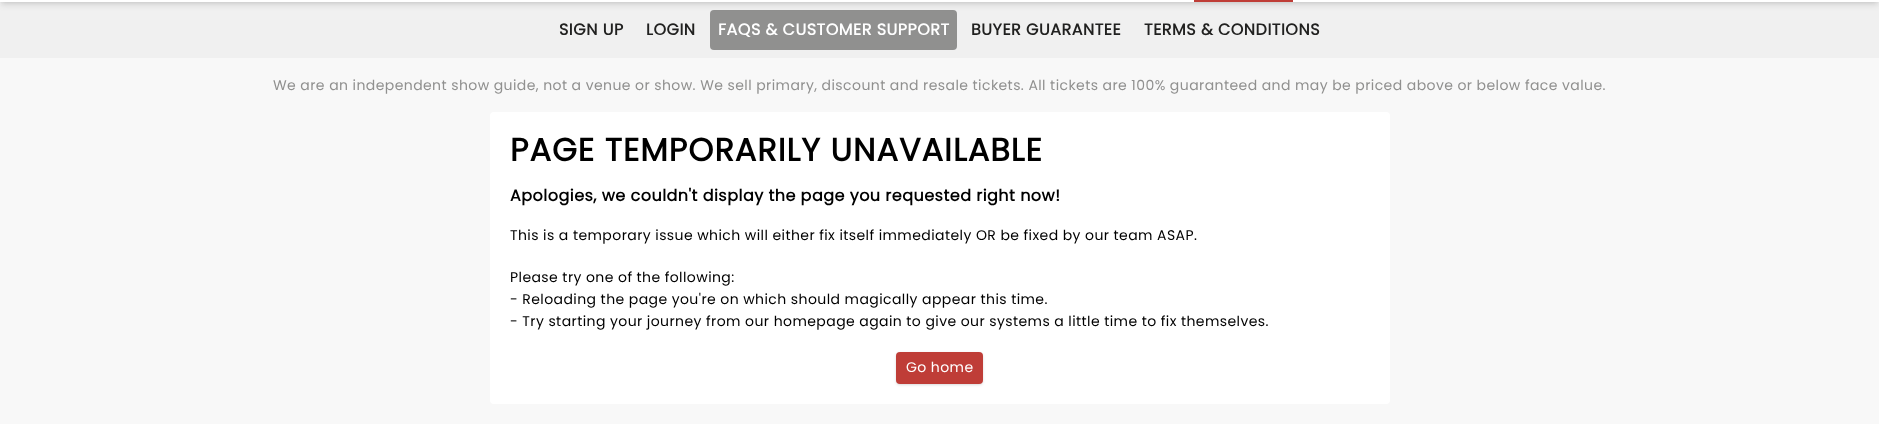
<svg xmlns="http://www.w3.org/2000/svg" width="1879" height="424">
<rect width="100%" height="100%" fill="#f8f8f8"/>
<rect y="2" width="1879" height="56" fill="#f0f0f0"/>
<rect x="2" y="-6" width="1875" height="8" fill="#0000001a" filter="blur(2px)"/>
<rect x="710" y="10" width="247" height="40" rx="4" fill="#90908f"/>
<rect x="1" y="-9" width="1877" height="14" fill="#0000001a" filter="blur(3px)"/>
<rect width="1879" height="2" fill="#fff"/>
<rect x="1194" width="99" height="2" fill="#bf3d37"/>
<text x="559" y="35" style="font-family:Poppins;font-size:16px;font-weight:bold;letter-spacing:0.48px;fill:#212120">SIGN UP</text>
<text x="646" y="35" style="font-family:Poppins;font-size:16px;font-weight:bold;letter-spacing:0.48px;fill:#212120">LOGIN</text>
<text x="718" y="35" style="font-family:Poppins;font-size:16px;font-weight:bold;letter-spacing:0.48px;fill:#fff">FAQS &amp; CUSTOMER SUPPORT</text>
<text x="971" y="35" style="font-family:Poppins;font-size:16px;font-weight:bold;letter-spacing:0.48px;fill:#212120">BUYER GUARANTEE</text>
<text x="1144" y="35" style="font-family:Poppins;font-size:16px;font-weight:bold;letter-spacing:0.48px;fill:#212120">TERMS &amp; CONDITIONS</text>
<text x="273" y="90" style="font-family:Poppins;font-size:14px;letter-spacing:0.42px;fill:#90908f">We are an independent show guide, not a venue or show. We sell primary, discount and resale tickets. All tickets are 100% guaranteed and may be priced above or below face value.</text>
<rect x="490" y="112" width="900" height="292" rx="4" fill="#fff"/>
<text x="510" y="161" style="font-family:Poppins;font-size:32px;font-weight:bold;letter-spacing:0.95px;fill:#000">PAGE TEMPORARILY UNAVAILABLE</text>
<text x="510" y="201" style="font-family:Poppins;font-size:16px;font-weight:bold;letter-spacing:0.48px;fill:#000">Apologies, we couldn't display the page you requested right now!</text>
<text x="510" y="240" style="font-family:Poppins;font-size:14px;letter-spacing:0.42px;fill:#000">This is a temporary issue which will either fix itself immediately OR be fixed by our team ASAP.</text>
<text x="510" y="282" style="font-family:Poppins;font-size:14px;letter-spacing:0.42px;fill:#000">Please try one of the following:</text>
<text x="510" y="304" style="font-family:Poppins;font-size:14px;letter-spacing:0.42px;fill:#000">- Reloading the page you're on which should magically appear this time.</text>
<text x="510" y="326" style="font-family:Poppins;font-size:14px;letter-spacing:0.42px;fill:#000">- Try starting your journey from our homepage again to give our systems a little time to fix themselves.</text>
<rect x="897" y="354" width="85" height="30" rx="3" fill="#0000001a" filter="blur(1px)"/>
<rect x="896" y="353" width="87" height="32" rx="4" fill="#0000001a" filter="blur(1.5px)"/>
<rect x="896" y="352" width="87" height="32" rx="4" fill="#bf3d37"/>
<text x="906" y="372" style="font-family:Poppins;font-size:14px;letter-spacing:0.42px;fill:#fff">Go home</text>
</svg>
